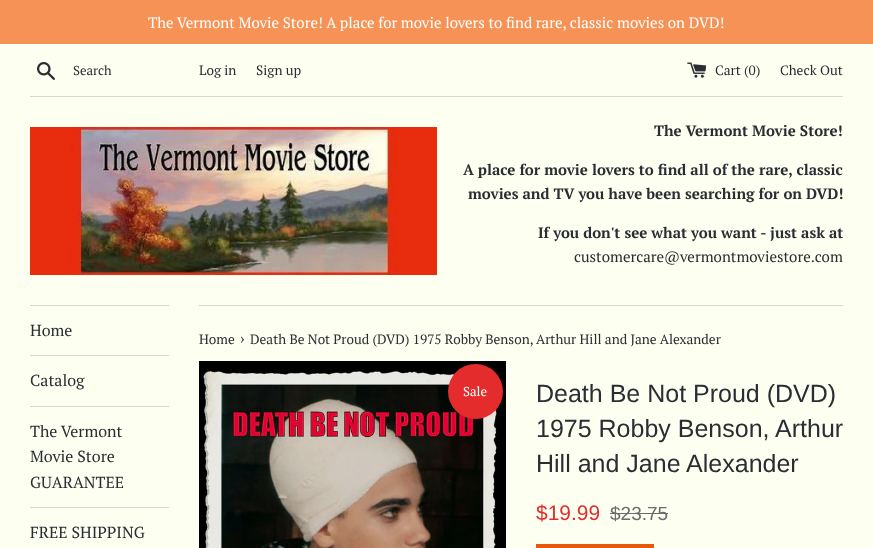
<svg xmlns="http://www.w3.org/2000/svg" width="873" height="548">
<rect width="100%" height="100%" fill="#fdfff1"/>
<rect width="873" height="44" fill="#f79256"/>
<text x="148" y="28" style="font-family:PT Serif;font-size:15px;fill:#fefffb">The Vermont Movie Store! A place for movie lovers to find rare, classic movies on DVD!</text>
<image x="37" y="62" width="18" height="18" href="media/1.png"/>
<text x="73" y="75" style="font-family:PT Serif;font-size:13px;fill:#2a2d33">Search</text>
<text x="199" y="75" style="font-family:PT Serif;font-size:13.5px;fill:#2a2d33">Log in</text>
<text x="256" y="75" style="font-family:PT Serif;font-size:13.5px;fill:#2a2d33">Sign up</text>
<image x="687" y="62" width="20" height="16" href="media/2.png"/>
<text x="715" y="75" style="font-family:PT Serif;font-size:13.5px;fill:#2a2d33">Cart (0)</text>
<text x="780" y="75" style="font-family:PT Serif;font-size:13.5px;fill:#2a2d33">Check Out</text>
<rect x="30" y="96" width="813" height="1" fill="#d7d8d2"/>
<image x="30" y="127" width="407" height="148" href="media/3.png"/>
<text x="654" y="136" style="font-family:PT Serif;font-size:15px;font-weight:bold;fill:#2a2d33">The Vermont Movie Store!</text>
<text x="463" y="175" style="font-family:PT Serif;font-size:15px;font-weight:bold;fill:#2a2d33">A place for movie lovers to find all of the rare, classic</text>
<text x="468" y="199" style="font-family:PT Serif;font-size:15px;font-weight:bold;fill:#2a2d33">movies and TV you have been searching for on DVD!</text>
<text x="538" y="238" style="font-family:PT Serif;font-size:15px;font-weight:bold;fill:#2a2d33">If you don't see what you want - just ask at</text>
<text x="574" y="262" style="font-family:PT Serif;font-size:15px;fill:#2a2d33">customercare@vermontmoviestore.com</text>
<rect x="30" y="305" width="139" height="1" fill="#d7d8d2"/>
<rect x="30" y="355" width="139" height="1" fill="#d7d8d2"/>
<text x="30" y="336" style="font-family:PT Serif;font-size:16px;fill:#2a2d33">Home</text>
<rect x="30" y="406" width="139" height="1" fill="#d7d8d2"/>
<text x="30" y="386" style="font-family:PT Serif;font-size:16px;fill:#2a2d33">Catalog</text>
<rect x="30" y="507" width="139" height="1" fill="#d7d8d2"/>
<text x="30" y="437" style="font-family:PT Serif;font-size:16px;fill:#2a2d33">The Vermont</text>
<text x="30" y="462" style="font-family:PT Serif;font-size:16px;fill:#2a2d33">Movie Store</text>
<text x="30" y="488" style="font-family:PT Serif;font-size:16px;fill:#2a2d33">GUARANTEE</text>
<text x="30" y="538" style="font-family:PT Serif;font-size:16px;fill:#2a2d33">FREE SHIPPING</text>
<rect x="199" y="305" width="644" height="1" fill="#d7d8d2"/>
<text x="199" y="344" style="font-family:PT Serif;font-size:13.5px;fill:#2a2d33">Home</text>
<text x="240" y="344" style="font-family:PT Serif;font-size:16px;fill:#2a2d33">›</text>
<text x="250" y="344" style="font-family:PT Serif;font-size:13.5px;fill:#2a2d33">Death Be Not Proud (DVD) 1975 Robby Benson, Arthur Hill and Jane Alexander</text>
<image x="199" y="361" width="307" height="187" href="media/4.png"/>
<circle cx="475.5" cy="391.5" r="27.5" fill="#e32c2b"/>
<text x="463" y="396" style="font-family:PT Serif;font-size:13px;fill:#fefffb">Sale</text>
<text x="536" y="402" style="font-family:Liberation Sans;font-size:25px;fill:#2a2d33">Death Be Not Proud (DVD)</text>
<text x="536" y="437" style="font-family:Liberation Sans;font-size:25px;fill:#2a2d33">1975 Robby Benson, Arthur</text>
<text x="536" y="472" style="font-family:Liberation Sans;font-size:25px;fill:#2a2d33">Hill and Jane Alexander</text>
<text x="536" y="520" style="font-family:Liberation Sans;font-size:21px;fill:#e32c2b">$19.99</text>
<text x="610" y="520" style="font-family:Liberation Sans;font-size:19px;fill:#696c6c">$23.75</text>
<rect x="610" y="513" width="58" height="1" fill="#696c6c"/>
<rect x="536" y="544" width="118" height="4" fill="#e9590b"/>
</svg>
